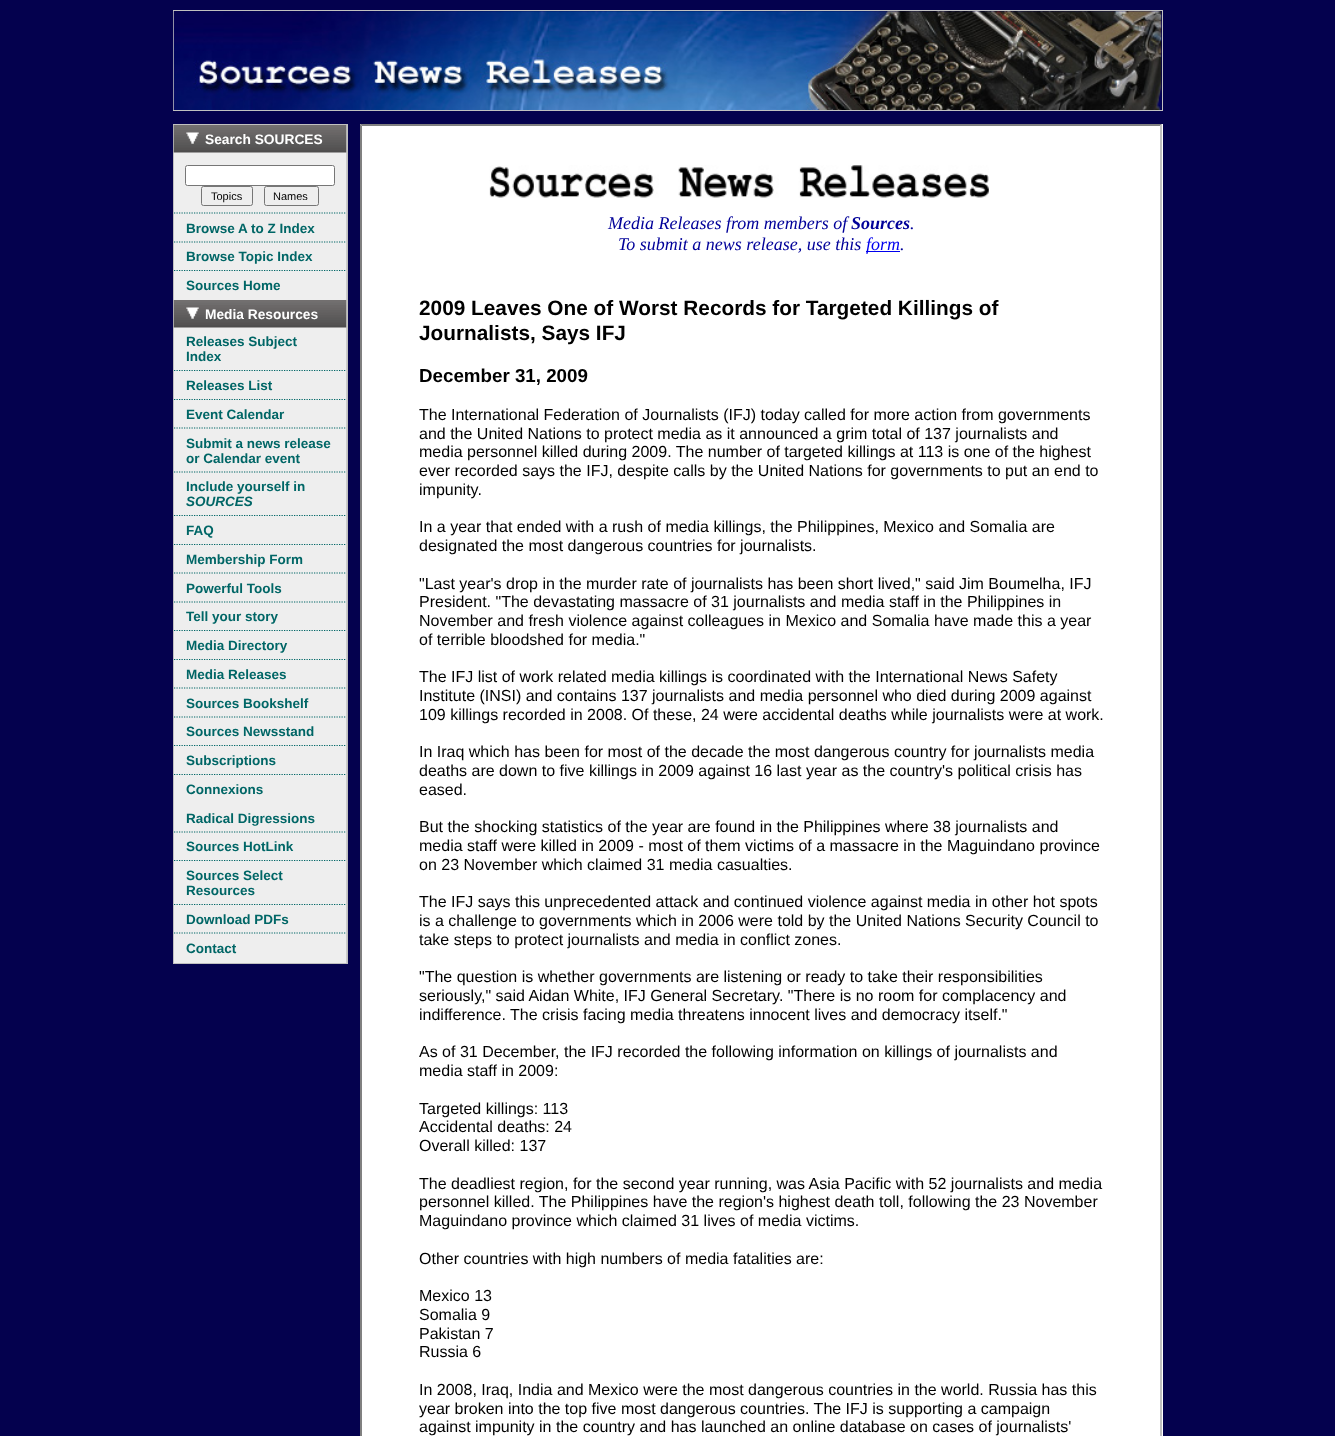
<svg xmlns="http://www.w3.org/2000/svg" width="1335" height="1436">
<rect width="100%" height="100%" fill="#04014e"/>
<rect x="173.5" y="10.5" width="989" height="100" fill="none" stroke="#c0c0c0"/>
<image x="173" y="11" width="989" height="99" href="media/1.png"/>
<rect x="346" y="125" width="1" height="838" fill="#ccc"/>
<rect x="173.5" y="124.5" width="174" height="839" fill="none" stroke="#c0c0c0"/>
<rect x="174" y="152" width="172" height="811" fill="#eee"/>
<image x="173" y="125" width="174" height="28" href="media/2.png"/>
<image x="186" y="132" width="13" height="12" href="media/3.png"/>
<text x="205" y="144" style="font-family:Liberation Sans;font-size:13.75px;font-weight:bold;fill:#fff">Search SOURCES</text>
<path d="M174 213h172" fill="none" stroke="#066" stroke-width="1.2" stroke-dasharray="1.25 1.25"/>
<rect x="185.5" y="165.5" width="149" height="20" rx="2" fill="#fff" stroke="#767676"/>
<rect x="201.5" y="186.5" width="51" height="19" rx="2" fill="none" stroke="#767676"/>
<text x="211" y="200" style="font-family:Liberation Sans;font-size:11px;fill:#000">Topics</text>
<rect x="264.5" y="186.5" width="54" height="19" rx="2" fill="none" stroke="#767676"/>
<text x="273" y="200" style="font-family:Liberation Sans;font-size:11px;fill:#000">Names</text>
<path d="M174 242h172" fill="none" stroke="#066" stroke-width="1.2" stroke-dasharray="1.25 1.25"/>
<text x="186" y="233" style="font-family:Liberation Sans;font-size:13.5px;font-weight:bold;fill:#066">Browse A to Z Index</text>
<path d="M174 270.5h172" fill="none" stroke="#066" stroke-width="1.2" stroke-dasharray="1.25 1.25"/>
<text x="186" y="261" style="font-family:Liberation Sans;font-size:13.5px;font-weight:bold;fill:#066">Browse Topic Index</text>
<text x="186" y="290" style="font-family:Liberation Sans;font-size:13.5px;font-weight:bold;fill:#066">Sources Home</text>
<image x="173" y="300" width="174" height="28" href="media/4.png"/>
<image x="186" y="307" width="13" height="12" href="media/5.png"/>
<text x="205" y="319" style="font-family:Liberation Sans;font-size:13.75px;font-weight:bold;fill:#fff">Media Resources</text>
<path d="M174 370.5h172" fill="none" stroke="#066" stroke-width="1.2" stroke-dasharray="1.25 1.25"/>
<text x="186" y="346" style="font-family:Liberation Sans;font-size:13.5px;font-weight:bold;fill:#066">Releases Subject</text>
<text x="186" y="361" style="font-family:Liberation Sans;font-size:13.5px;font-weight:bold;fill:#066">Index</text>
<path d="M174 399.5h172" fill="none" stroke="#066" stroke-width="1.2" stroke-dasharray="1.25 1.25"/>
<text x="186" y="390" style="font-family:Liberation Sans;font-size:13.5px;font-weight:bold;fill:#066">Releases List</text>
<path d="M174 428h172" fill="none" stroke="#066" stroke-width="1.2" stroke-dasharray="1.25 1.25"/>
<text x="186" y="419" style="font-family:Liberation Sans;font-size:13.5px;font-weight:bold;fill:#066">Event Calendar</text>
<path d="M174 472h172" fill="none" stroke="#066" stroke-width="1.2" stroke-dasharray="1.25 1.25"/>
<text x="186" y="448" style="font-family:Liberation Sans;font-size:13.5px;font-weight:bold;fill:#066">Submit a news release</text>
<text x="186" y="463" style="font-family:Liberation Sans;font-size:13.5px;font-weight:bold;fill:#066">or Calendar event</text>
<path d="M174 515.5h172" fill="none" stroke="#066" stroke-width="1.2" stroke-dasharray="1.25 1.25"/>
<text x="186" y="491" style="font-family:Liberation Sans;font-size:13.5px;font-weight:bold;fill:#066">Include yourself in</text>
<text x="186" y="506" style="font-family:Liberation Sans;font-size:13.5px;font-weight:bold;font-style:italic;fill:#066">SOURCES</text>
<path d="M174 544.5h172" fill="none" stroke="#066" stroke-width="1.2" stroke-dasharray="1.25 1.25"/>
<text x="186" y="535" style="font-family:Liberation Sans;font-size:13.5px;font-weight:bold;fill:#066">FAQ</text>
<path d="M174 573h172" fill="none" stroke="#066" stroke-width="1.2" stroke-dasharray="1.25 1.25"/>
<text x="186" y="564" style="font-family:Liberation Sans;font-size:13.5px;font-weight:bold;fill:#066">Membership Form</text>
<path d="M174 602h172" fill="none" stroke="#066" stroke-width="1.2" stroke-dasharray="1.25 1.25"/>
<text x="186" y="593" style="font-family:Liberation Sans;font-size:13.5px;font-weight:bold;fill:#066">Powerful Tools</text>
<path d="M174 630.5h172" fill="none" stroke="#066" stroke-width="1.2" stroke-dasharray="1.25 1.25"/>
<text x="186" y="621" style="font-family:Liberation Sans;font-size:13.5px;font-weight:bold;fill:#066">Tell your story</text>
<path d="M174 659.5h172" fill="none" stroke="#066" stroke-width="1.2" stroke-dasharray="1.25 1.25"/>
<text x="186" y="650" style="font-family:Liberation Sans;font-size:13.5px;font-weight:bold;fill:#066">Media Directory</text>
<path d="M174 688h172" fill="none" stroke="#066" stroke-width="1.2" stroke-dasharray="1.25 1.25"/>
<text x="186" y="679" style="font-family:Liberation Sans;font-size:13.5px;font-weight:bold;fill:#066">Media Releases</text>
<path d="M174 717h172" fill="none" stroke="#066" stroke-width="1.2" stroke-dasharray="1.25 1.25"/>
<text x="186" y="708" style="font-family:Liberation Sans;font-size:13.5px;font-weight:bold;fill:#066">Sources Bookshelf</text>
<path d="M174 745.5h172" fill="none" stroke="#066" stroke-width="1.2" stroke-dasharray="1.25 1.25"/>
<text x="186" y="736" style="font-family:Liberation Sans;font-size:13.5px;font-weight:bold;fill:#066">Sources Newsstand</text>
<path d="M174 774.5h172" fill="none" stroke="#066" stroke-width="1.2" stroke-dasharray="1.25 1.25"/>
<text x="186" y="765" style="font-family:Liberation Sans;font-size:13.5px;font-weight:bold;fill:#066">Subscriptions</text>
<text x="186" y="794" style="font-family:Liberation Sans;font-size:13.5px;font-weight:bold;fill:#066">Connexions</text>
<path d="M174 832h172" fill="none" stroke="#066" stroke-width="1.2" stroke-dasharray="1.25 1.25"/>
<text x="186" y="823" style="font-family:Liberation Sans;font-size:13.5px;font-weight:bold;fill:#066">Radical Digressions</text>
<path d="M174 860.5h172" fill="none" stroke="#066" stroke-width="1.2" stroke-dasharray="1.25 1.25"/>
<text x="186" y="851" style="font-family:Liberation Sans;font-size:13.5px;font-weight:bold;fill:#066">Sources HotLink</text>
<path d="M174 904.5h172" fill="none" stroke="#066" stroke-width="1.2" stroke-dasharray="1.25 1.25"/>
<text x="186" y="880" style="font-family:Liberation Sans;font-size:13.5px;font-weight:bold;fill:#066">Sources Select</text>
<text x="186" y="895" style="font-family:Liberation Sans;font-size:13.5px;font-weight:bold;fill:#066">Resources</text>
<path d="M174 933h172" fill="none" stroke="#066" stroke-width="1.2" stroke-dasharray="1.25 1.25"/>
<text x="186" y="924" style="font-family:Liberation Sans;font-size:13.5px;font-weight:bold;fill:#066">Download PDFs</text>
<text x="186" y="953" style="font-family:Liberation Sans;font-size:13.5px;font-weight:bold;fill:#066">Contact</text>
<rect x="360" y="124" width="803" height="1312" fill="#fff"/>
<path d="M360 124h802l-2 2h-798z" fill="#808080"/>
<path d="M1162 124v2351l-2-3v-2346z" fill="#c0c0c0"/>
<path d="M360 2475v-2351l2 2v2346z" fill="#808080"/>
<image x="489" y="165" width="500" height="33" href="media/6.png"/>
<text x="608" y="229" style="font-family:Liberation Serif;font-size:18px;font-style:italic;fill:#009">Media Releases from members of</text>
<text x="851" y="229" style="font-family:Liberation Serif;font-size:18px;font-weight:bold;font-style:italic;fill:#009">Sources</text>
<text x="910" y="229" style="font-family:Liberation Serif;font-size:18px;font-style:italic;fill:#009">.</text>
<text x="618" y="250" style="font-family:Liberation Serif;font-size:18px;font-style:italic;fill:#009">To submit a news release, use this</text>
<rect x="866" y="251" width="34" height="1" fill="#00e"/>
<text x="866" y="250" style="font-family:Liberation Serif;font-size:18px;font-style:italic;fill:#00e">form</text>
<text x="900" y="250" style="font-family:Liberation Serif;font-size:18px;font-style:italic;fill:#009">.</text>
<text x="419" y="315" style="font-family:Liberation Sans;font-size:20.8px;font-weight:bold;fill:#000">2009 Leaves One of Worst Records for Targeted Killings of</text>
<text x="419" y="340" style="font-family:Liberation Sans;font-size:20.8px;font-weight:bold;fill:#000">Journalists, Says IFJ</text>
<text x="419" y="382" style="font-family:Liberation Sans;font-size:18.75px;font-weight:bold;fill:#000">December 31, 2009</text>
<text x="419" y="420" style="font-family:Liberation Sans;font-size:16px;fill:#000">The International Federation of Journalists (IFJ) today called for more action from governments</text>
<text x="419" y="439" style="font-family:Liberation Sans;font-size:16px;fill:#000">and the United Nations to protect media as it announced a grim total of 137 journalists and</text>
<text x="419" y="457" style="font-family:Liberation Sans;font-size:16px;fill:#000">media personnel killed during 2009. The number of targeted killings at 113 is one of the highest</text>
<text x="419" y="476" style="font-family:Liberation Sans;font-size:16px;fill:#000">ever recorded says the IFJ, despite calls by the United Nations for governments to put an end to</text>
<text x="419" y="495" style="font-family:Liberation Sans;font-size:16px;fill:#000">impunity.</text>
<text x="419" y="532" style="font-family:Liberation Sans;font-size:16px;fill:#000">In a year that ended with a rush of media killings, the Philippines, Mexico and Somalia are</text>
<text x="419" y="551" style="font-family:Liberation Sans;font-size:16px;fill:#000">designated the most dangerous countries for journalists.</text>
<text x="419" y="589" style="font-family:Liberation Sans;font-size:16px;fill:#000">"Last year's drop in the murder rate of journalists has been short lived," said Jim Boumelha, IFJ</text>
<text x="419" y="607" style="font-family:Liberation Sans;font-size:16px;fill:#000">President. "The devastating massacre of 31 journalists and media staff in the Philippines in</text>
<text x="419" y="626" style="font-family:Liberation Sans;font-size:16px;fill:#000">November and fresh violence against colleagues in Mexico and Somalia have made this a year</text>
<text x="419" y="645" style="font-family:Liberation Sans;font-size:16px;fill:#000">of terrible bloodshed for media."</text>
<text x="419" y="682" style="font-family:Liberation Sans;font-size:16px;fill:#000">The IFJ list of work related media killings is coordinated with the International News Safety</text>
<text x="419" y="701" style="font-family:Liberation Sans;font-size:16px;fill:#000">Institute (INSI) and contains 137 journalists and media personnel who died during 2009 against</text>
<text x="419" y="720" style="font-family:Liberation Sans;font-size:16px;fill:#000">109 killings recorded in 2008. Of these, 24 were accidental deaths while journalists were at work.</text>
<text x="419" y="757" style="font-family:Liberation Sans;font-size:16px;fill:#000">In Iraq which has been for most of the decade the most dangerous country for journalists media</text>
<text x="419" y="776" style="font-family:Liberation Sans;font-size:16px;fill:#000">deaths are down to five killings in 2009 against 16 last year as the country's political crisis has</text>
<text x="419" y="795" style="font-family:Liberation Sans;font-size:16px;fill:#000">eased.</text>
<text x="419" y="832" style="font-family:Liberation Sans;font-size:16px;fill:#000">But the shocking statistics of the year are found in the Philippines where 38 journalists and</text>
<text x="419" y="851" style="font-family:Liberation Sans;font-size:16px;fill:#000">media staff were killed in 2009 - most of them victims of a massacre in the Maguindano province</text>
<text x="419" y="870" style="font-family:Liberation Sans;font-size:16px;fill:#000">on 23 November which claimed 31 media casualties.</text>
<text x="419" y="907" style="font-family:Liberation Sans;font-size:16px;fill:#000">The IFJ says this unprecedented attack and continued violence against media in other hot spots</text>
<text x="419" y="926" style="font-family:Liberation Sans;font-size:16px;fill:#000">is a challenge to governments which in 2006 were told by the United Nations Security Council to</text>
<text x="419" y="945" style="font-family:Liberation Sans;font-size:16px;fill:#000">take steps to protect journalists and media in conflict zones.</text>
<text x="419" y="982" style="font-family:Liberation Sans;font-size:16px;fill:#000">"The question is whether governments are listening or ready to take their responsibilities</text>
<text x="419" y="1001" style="font-family:Liberation Sans;font-size:16px;fill:#000">seriously," said Aidan White, IFJ General Secretary. "There is no room for complacency and</text>
<text x="419" y="1020" style="font-family:Liberation Sans;font-size:16px;fill:#000">indifference. The crisis facing media threatens innocent lives and democracy itself."</text>
<text x="419" y="1057" style="font-family:Liberation Sans;font-size:16px;fill:#000">As of 31 December, the IFJ recorded the following information on killings of journalists and</text>
<text x="419" y="1076" style="font-family:Liberation Sans;font-size:16px;fill:#000">media staff in 2009:</text>
<text x="419" y="1114" style="font-family:Liberation Sans;font-size:16px;fill:#000">Targeted killings: 113</text>
<text x="419" y="1132" style="font-family:Liberation Sans;font-size:16px;fill:#000">Accidental deaths: 24</text>
<text x="419" y="1151" style="font-family:Liberation Sans;font-size:16px;fill:#000">Overall killed: 137</text>
<text x="419" y="1189" style="font-family:Liberation Sans;font-size:16px;fill:#000">The deadliest region, for the second year running, was Asia Pacific with 52 journalists and media</text>
<text x="419" y="1207" style="font-family:Liberation Sans;font-size:16px;fill:#000">personnel killed. The Philippines have the region's highest death toll, following the 23 November</text>
<text x="419" y="1226" style="font-family:Liberation Sans;font-size:16px;fill:#000">Maguindano province which claimed 31 lives of media victims.</text>
<text x="419" y="1264" style="font-family:Liberation Sans;font-size:16px;fill:#000">Other countries with high numbers of media fatalities are:</text>
<text x="419" y="1301" style="font-family:Liberation Sans;font-size:16px;fill:#000">Mexico 13</text>
<text x="419" y="1320" style="font-family:Liberation Sans;font-size:16px;fill:#000">Somalia 9</text>
<text x="419" y="1339" style="font-family:Liberation Sans;font-size:16px;fill:#000">Pakistan 7</text>
<text x="419" y="1357" style="font-family:Liberation Sans;font-size:16px;fill:#000">Russia 6</text>
<text x="419" y="1395" style="font-family:Liberation Sans;font-size:16px;fill:#000">In 2008, Iraq, India and Mexico were the most dangerous countries in the world. Russia has this</text>
<text x="419" y="1414" style="font-family:Liberation Sans;font-size:16px;fill:#000">year broken into the top five most dangerous countries. The IFJ is supporting a campaign</text>
<text x="419" y="1432" style="font-family:Liberation Sans;font-size:16px;fill:#000">against impunity in the country and has launched an online database on cases of journalists'</text>
</svg>
